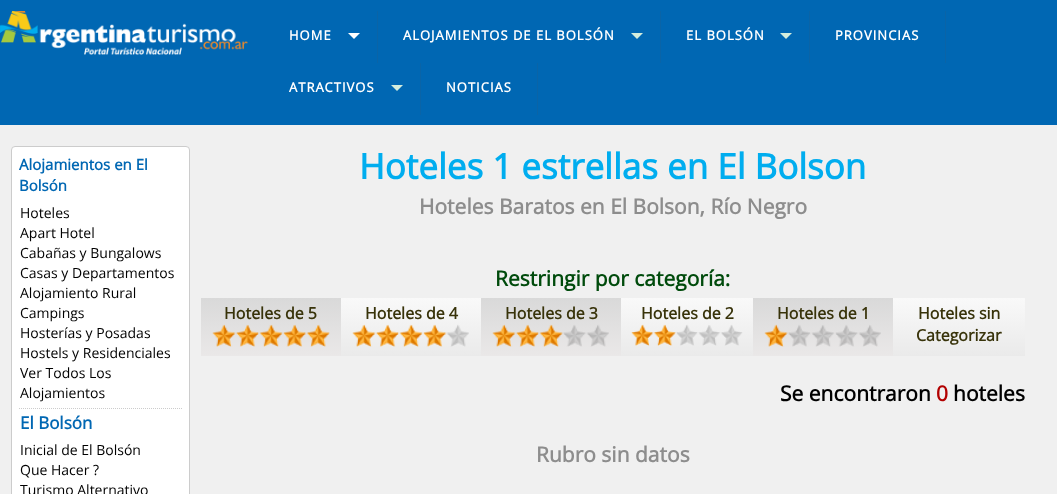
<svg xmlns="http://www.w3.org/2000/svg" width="1057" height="494">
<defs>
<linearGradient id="g1" gradientUnits="userSpaceOnUse" x1="271" y1="298" x2="271" y2="356"><stop offset="0" stop-color="#d9d9d9"/><stop offset="1" stop-color="#eae8e8"/></linearGradient>
<linearGradient id="g2" gradientUnits="userSpaceOnUse" x1="411" y1="298" x2="411" y2="356"><stop offset="0" stop-color="#f9f9f9"/><stop offset="1" stop-color="#eaeaea"/></linearGradient>
<linearGradient id="g3" gradientUnits="userSpaceOnUse" x1="551" y1="298" x2="551" y2="356"><stop offset="0" stop-color="#d9d9d9"/><stop offset="1" stop-color="#eae8e8"/></linearGradient>
<linearGradient id="g4" gradientUnits="userSpaceOnUse" x1="687" y1="298" x2="687" y2="356"><stop offset="0" stop-color="#f9f9f9"/><stop offset="1" stop-color="#eaeaea"/></linearGradient>
<linearGradient id="g5" gradientUnits="userSpaceOnUse" x1="823" y1="298" x2="823" y2="356"><stop offset="0" stop-color="#d9d9d9"/><stop offset="1" stop-color="#eae8e8"/></linearGradient>
<linearGradient id="g6" gradientUnits="userSpaceOnUse" x1="959" y1="298" x2="959" y2="356"><stop offset="0" stop-color="#f9f9f9"/><stop offset="1" stop-color="#eaeaea"/></linearGradient>
</defs>
<rect width="100%" height="100%" fill="#f0f0f0"/>
<rect width="1057" height="125" fill="#0067b3"/>
<image x="0" y="11" width="248" height="44" href="media/1.png"/>
<rect x="377" y="11" width="1" height="52" fill="#0a64a7"/>
<text x="289" y="40" style="font-family:Open Sans;font-size:13px;font-weight:bold;letter-spacing:1px;fill:#fff">HOME</text>
<path d="M348 33h12l-6 6z" fill="#fff"/>
<rect x="660" y="11" width="1" height="52" fill="#0a64a7"/>
<text x="403" y="40" style="font-family:Open Sans;font-size:13px;font-weight:bold;letter-spacing:1px;fill:#fff">ALOJAMIENTOS DE EL BOLSÓN</text>
<path d="M631 33h12l-6 6z" fill="#d3eddd"/>
<rect x="809" y="11" width="1" height="52" fill="#0a64a7"/>
<text x="686" y="40" style="font-family:Open Sans;font-size:13px;font-weight:bold;letter-spacing:1px;fill:#fff">EL BOLSÓN</text>
<path d="M780 33h12l-6 6z" fill="#d3eddd"/>
<rect x="945" y="11" width="1" height="52" fill="#0a64a7"/>
<text x="835" y="40" style="font-family:Open Sans;font-size:13px;font-weight:bold;letter-spacing:1px;fill:#fff">PROVINCIAS</text>
<rect x="420" y="63" width="1" height="52" fill="#0a64a7"/>
<text x="289" y="92" style="font-family:Open Sans;font-size:13px;font-weight:bold;letter-spacing:1px;fill:#fff">ATRACTIVOS</text>
<path d="M391 85h12l-6 6z" fill="#d3eddd"/>
<rect x="537" y="63" width="1" height="52" fill="#0a64a7"/>
<text x="446" y="92" style="font-family:Open Sans;font-size:13px;font-weight:bold;letter-spacing:1px;fill:#fff">NOTICIAS</text>
<rect x="11.5" y="146.5" width="178" height="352" rx="3.5" fill="#fff" stroke="#ccc"/>
<text x="19" y="170" style="font-family:Open Sans;font-size:15px;font-weight:bold;fill:#0067b3">Alojamientos en El</text>
<text x="19" y="191" style="font-family:Open Sans;font-size:15px;font-weight:bold;fill:#0067b3">Bolsón</text>
<text x="20" y="218" style="font-family:Open Sans;font-size:14px;fill:#000">Hoteles</text>
<text x="20" y="238" style="font-family:Open Sans;font-size:14px;fill:#000">Apart Hotel</text>
<text x="20" y="258" style="font-family:Open Sans;font-size:14px;fill:#000">Cabañas y Bungalows</text>
<text x="20" y="278" style="font-family:Open Sans;font-size:14px;fill:#000">Casas y Departamentos</text>
<text x="20" y="298" style="font-family:Open Sans;font-size:14px;fill:#000">Alojamiento Rural</text>
<text x="20" y="318" style="font-family:Open Sans;font-size:14px;fill:#000">Campings</text>
<text x="20" y="338" style="font-family:Open Sans;font-size:14px;fill:#000">Hosterías y Posadas</text>
<text x="20" y="358" style="font-family:Open Sans;font-size:14px;fill:#000">Hostels y Residenciales</text>
<text x="20" y="378" style="font-family:Open Sans;font-size:14px;fill:#000">Ver Todos Los</text>
<text x="20" y="398" style="font-family:Open Sans;font-size:14px;fill:#000">Alojamientos</text>
<path d="M19 408.5h163" fill="none" stroke="#ccc" stroke-dasharray="1 1"/>
<text x="20" y="429" style="font-family:Open Sans;font-size:17px;font-weight:bold;fill:#0067b3">El Bolsón</text>
<text x="20" y="455" style="font-family:Open Sans;font-size:14px;fill:#000">Inicial de El Bolsón</text>
<text x="20" y="475" style="font-family:Open Sans;font-size:14px;fill:#000">Que Hacer ?</text>
<text x="20" y="495" style="font-family:Open Sans;font-size:14px;fill:#000">Turismo Alternativo</text>
<text x="359" y="179" style="font-family:Open Sans;font-size:35px;font-weight:bold;fill:#00adef">Hoteles 1 estrellas en El Bolson</text>
<text x="419" y="214" style="font-family:Open Sans;font-size:21px;font-weight:bold;fill:#8d8d8d">Hoteles Baratos en El Bolson, Río Negro</text>
<text x="495" y="286" style="font-family:Open Sans;font-size:21px;font-weight:bold;fill:#004b0c">Restringir por categoría:</text>
<rect x="201" y="298" width="140" height="58" fill="url(#g1)"/>
<text x="224" y="319" style="font-family:Open Sans;font-size:16px;font-weight:bold;fill:#38330a">Hoteles de 5</text>
<image x="212" y="324" width="118" height="23" href="media/2.png"/>
<rect x="341" y="298" width="140" height="58" fill="url(#g2)"/>
<text x="365" y="319" style="font-family:Open Sans;font-size:16px;font-weight:bold;fill:#38330a">Hoteles de 4</text>
<image x="352" y="324" width="117" height="23" href="media/3.png"/>
<rect x="481" y="298" width="140" height="58" fill="url(#g3)"/>
<text x="505" y="319" style="font-family:Open Sans;font-size:16px;font-weight:bold;fill:#38330a">Hoteles de 3</text>
<image x="492" y="324" width="117" height="23" href="media/4.png"/>
<rect x="621" y="298" width="132" height="58" fill="url(#g4)"/>
<text x="641" y="319" style="font-family:Open Sans;font-size:16px;font-weight:bold;fill:#38330a">Hoteles de 2</text>
<image x="631" y="324" width="112" height="22" href="media/5.png"/>
<rect x="753" y="298" width="140" height="58" fill="url(#g5)"/>
<text x="777" y="319" style="font-family:Open Sans;font-size:16px;font-weight:bold;fill:#38330a">Hoteles de 1</text>
<image x="764" y="324" width="117" height="23" href="media/6.png"/>
<rect x="893" y="298" width="132" height="58" fill="url(#g6)"/>
<text x="918" y="319" style="font-family:Open Sans;font-size:16px;font-weight:bold;fill:#38330a">Hoteles sin</text>
<text x="916" y="341" style="font-family:Open Sans;font-size:16px;font-weight:bold;fill:#38330a">Categorizar</text>
<text x="780" y="401" style="font-family:Open Sans;font-size:21px;font-weight:bold;fill:#000">Se encontraron</text>
<text x="936" y="401" style="font-family:Open Sans;font-size:21px;font-weight:bold;fill:#b20000">0</text>
<text x="953" y="401" style="font-family:Open Sans;font-size:21px;font-weight:bold;fill:#000">hoteles</text>
<text x="536" y="462" style="font-family:Open Sans;font-size:21px;font-weight:bold;fill:#8d8d8d">Rubro sin datos</text>
</svg>
